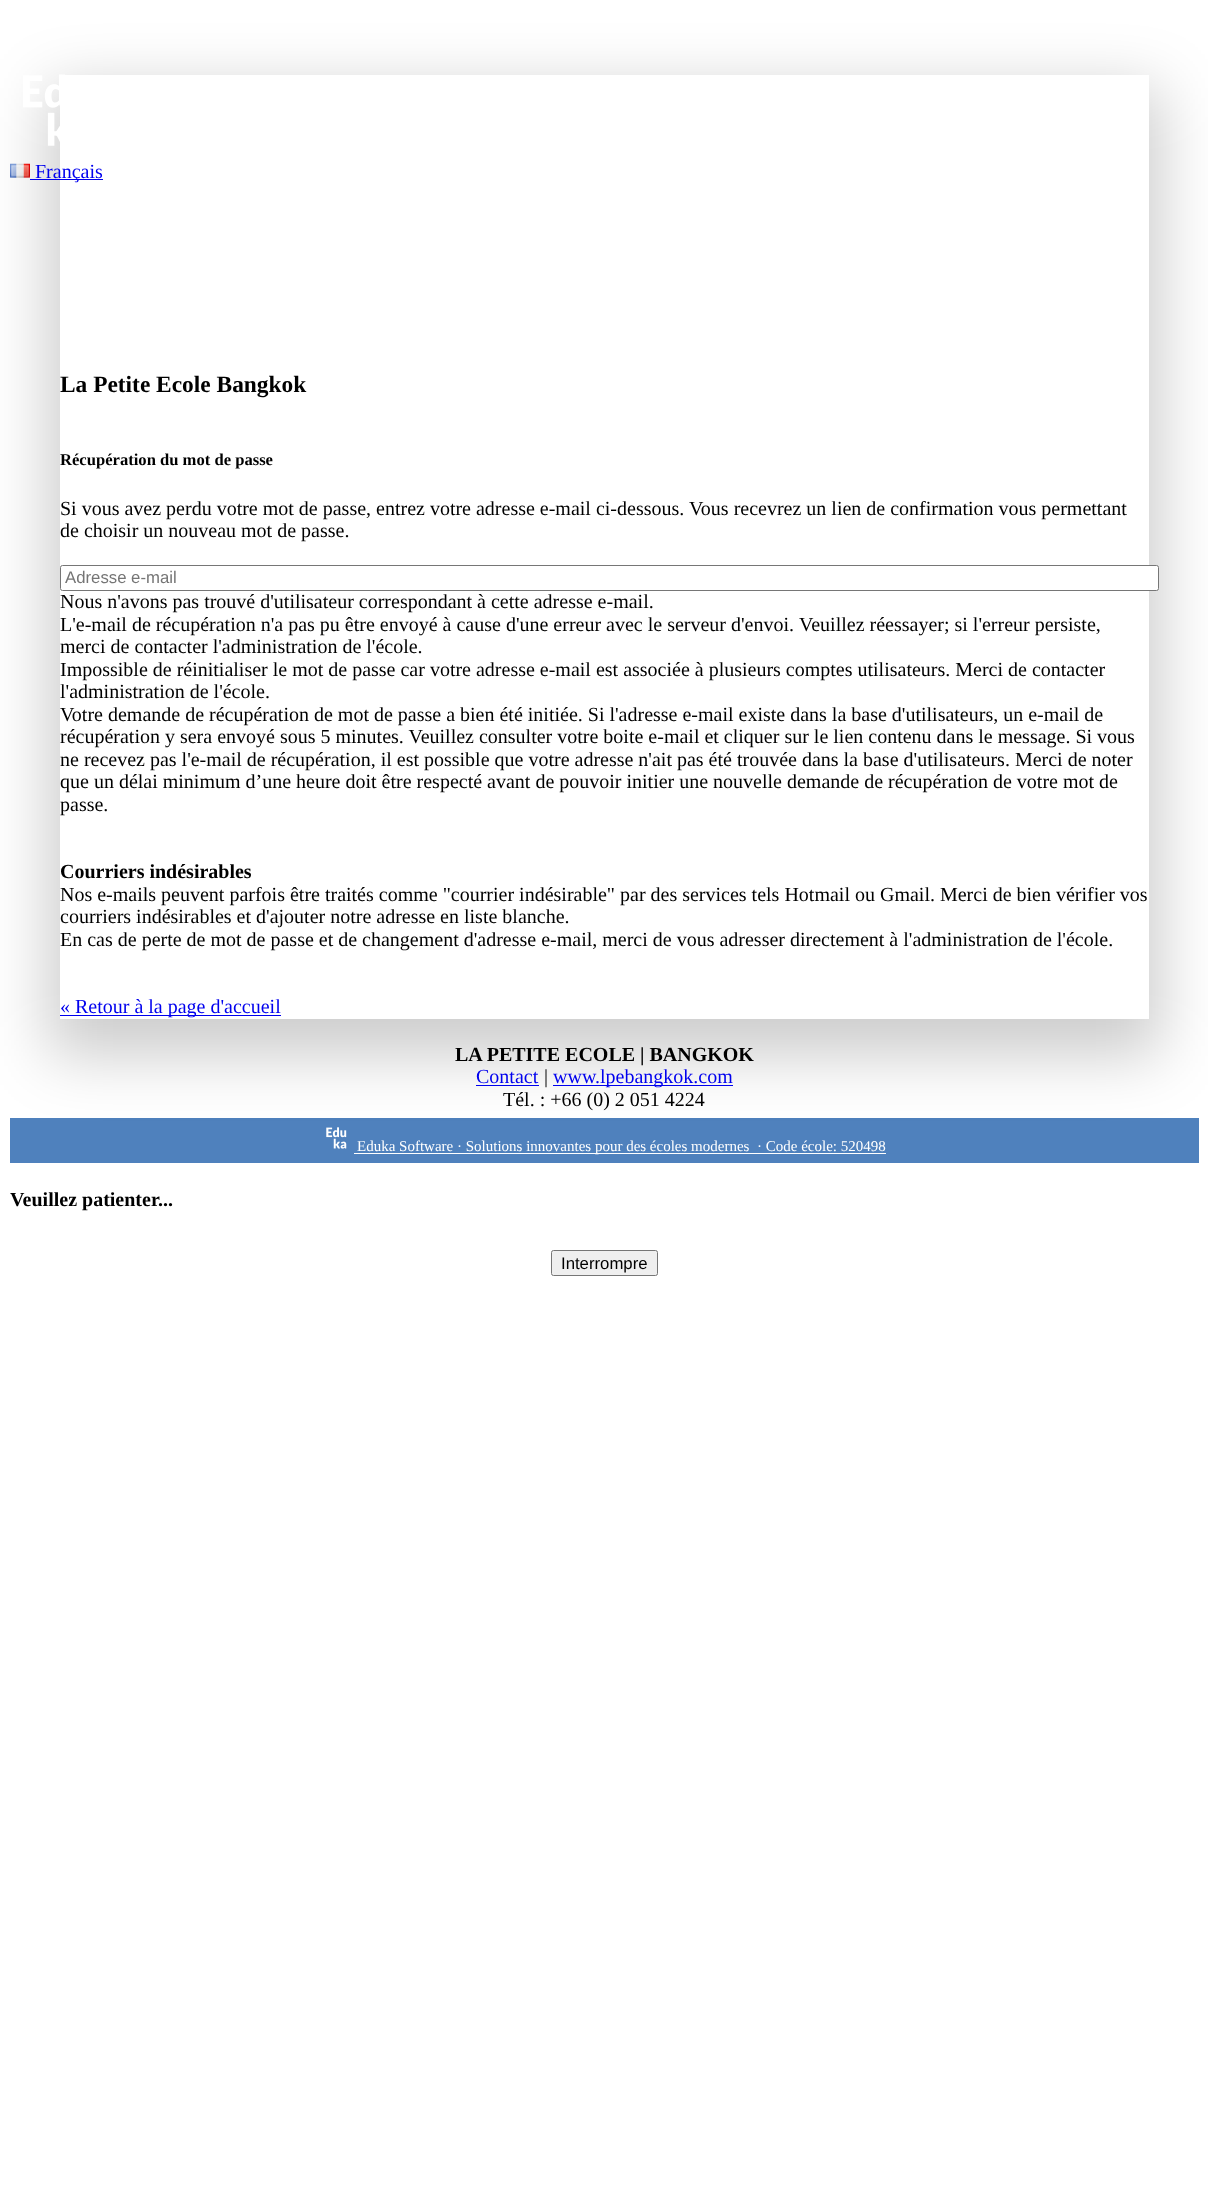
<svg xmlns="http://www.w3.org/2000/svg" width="1208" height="2209">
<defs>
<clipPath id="clip1"><path d="M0 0h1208v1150h-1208zm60 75h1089v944h-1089z" clip-rule="evenodd"/></clipPath>
</defs>
<rect width="100%" height="100%" fill="#fff"/>
<rect x="10" y="1118" width="1189" height="45" fill="#4f81bd"/>
<g clip-path="url(#clip1)">
<rect x="48" y="88" width="1113" height="968" fill="#00000033" filter="blur(31px)"/>
</g>
<image x="23" y="74" width="42" height="72" href="media/1.png"/>
<image x="10" y="163" width="20" height="15" href="media/2.png"/>
<rect x="30" y="179" width="73" height="1" fill="#00e"/>
<text x="35" y="178" style="font-family:Liberation Serif;font-size:20px;fill:#00e">Français</text>
<text x="60" y="392" style="font-family:Liberation Serif;font-size:23.4px;font-weight:bold;fill:#000">La Petite Ecole Bangkok</text>
<text x="60" y="465" style="font-family:Liberation Serif;font-size:16.6px;font-weight:bold;fill:#000">Récupération du mot de passe</text>
<text x="60" y="515" style="font-family:Liberation Serif;font-size:20px;fill:#000">Si vous avez perdu votre mot de passe, entrez votre adresse e-mail ci-dessous.</text>
<text x="689" y="515" style="font-family:Liberation Serif;font-size:20px;fill:#000">Vous recevrez un lien de confirmation vous permettant</text>
<text x="60" y="537" style="font-family:Liberation Serif;font-size:20px;fill:#000">de choisir un nouveau mot de passe.</text>
<rect x="60.5" y="565.5" width="1098" height="25" rx="2" fill="#fff" stroke="#767676"/>
<text x="65" y="583" style="font-family:Liberation Sans;font-size:16.75px;fill:#757575">Adresse e-mail</text>
<text x="60" y="608" style="font-family:Liberation Serif;font-size:20px;fill:#000">Nous n'avons pas trouvé d'utilisateur correspondant à cette adresse e-mail.</text>
<text x="60" y="631" style="font-family:Liberation Serif;font-size:20px;fill:#000">L'e-mail de récupération n'a pas pu être envoyé à cause d'une erreur avec le serveur d'envoi.</text>
<text x="799" y="631" style="font-family:Liberation Serif;font-size:20px;fill:#000">Veuillez réessayer; si l'erreur persiste,</text>
<text x="60" y="653" style="font-family:Liberation Serif;font-size:20px;fill:#000">merci de contacter l'administration de l'école.</text>
<text x="60" y="676" style="font-family:Liberation Serif;font-size:20px;fill:#000">Impossible de réinitialiser le mot de passe car votre adresse e-mail est associée à plusieurs comptes utilisateurs. Merci de contacter</text>
<text x="60" y="698" style="font-family:Liberation Serif;font-size:20px;fill:#000">l'administration de l'école.</text>
<text x="60" y="721" style="font-family:Liberation Serif;font-size:20px;fill:#000">Votre demande de récupération de mot de passe a bien été initiée. Si l'adresse e-mail existe dans la base d'utilisateurs, un e-mail de</text>
<text x="60" y="743" style="font-family:Liberation Serif;font-size:20px;fill:#000">récupération y sera envoyé sous 5 minutes. Veuillez consulter votre boite e-mail et cliquer sur le lien contenu dans le message. Si vous</text>
<text x="60" y="766" style="font-family:Liberation Serif;font-size:20px;fill:#000">ne recevez pas l'e-mail de récupération, il est possible que votre adresse n'ait pas été trouvée dans la base d'utilisateurs. Merci de noter</text>
<text x="60" y="788" style="font-family:Liberation Serif;font-size:20px;fill:#000">que un délai minimum d’une heure doit être respecté avant de pouvoir initier une nouvelle demande de récupération de votre mot de</text>
<text x="60" y="811" style="font-family:Liberation Serif;font-size:20px;fill:#000">passe.</text>
<text x="60" y="878" style="font-family:Liberation Serif;font-size:20px;font-weight:bold;fill:#000">Courriers indésirables</text>
<text x="60" y="901" style="font-family:Liberation Serif;font-size:20px;fill:#000">Nos e-mails peuvent parfois être traités comme "courrier indésirable" par des services tels Hotmail ou Gmail. Merci de bien vérifier vos</text>
<text x="60" y="923" style="font-family:Liberation Serif;font-size:20px;fill:#000">courriers indésirables et d'ajouter notre adresse en liste blanche.</text>
<text x="60" y="946" style="font-family:Liberation Serif;font-size:20px;fill:#000">En cas de perte de mot de passe et de changement d'adresse e-mail, merci de vous adresser directement à l'administration de l'école.</text>
<rect x="60" y="1015" width="221" height="1" fill="#00e"/>
<text x="60" y="1013" style="font-family:Liberation Serif;font-size:20px;fill:#00e">« Retour à la page d'accueil</text>
<text x="455" y="1061" style="font-family:Liberation Serif;font-size:20px;font-weight:bold;fill:#000">LA PETITE ECOLE | BANGKOK</text>
<text x="476" y="1083" style="font-family:Liberation Serif;font-size:20px;fill:#00e">Contact</text>
<rect x="476" y="1085" width="63" height="1" fill="#00e"/>
<text x="544" y="1083" style="font-family:Liberation Serif;font-size:20px;fill:#000">|</text>
<rect x="553" y="1085" width="180" height="1" fill="#00e"/>
<text x="553" y="1083" style="font-family:Liberation Serif;font-size:20px;fill:#00e">www.lpebangkok.com</text>
<text x="503" y="1106" style="font-family:Liberation Serif;font-size:20px;fill:#000">Tél. : +66 (0) 2 051 4224</text>
<image x="326" y="1127" width="21" height="22" href="media/3.png"/>
<rect x="354" y="1153" width="532" height="1" fill="#fff"/>
<text x="357" y="1151" style="font-family:Liberation Serif;font-size:15px;fill:#fff">Eduka Software · Solutions innovantes pour des écoles modernes</text>
<text x="757" y="1151" style="font-family:Liberation Serif;font-size:15px;fill:#fff">· Code école: 520498</text>
<text x="10" y="1206" style="font-family:Liberation Serif;font-size:20px;font-weight:bold;fill:#000">Veuillez patienter...</text>
<rect x="551.5" y="1250.5" width="106" height="25" rx="2" fill="#efefef" stroke="#767676"/>
<text x="561" y="1269" style="font-family:Liberation Sans;font-size:16.75px;fill:#000">Interrompre</text>
</svg>
